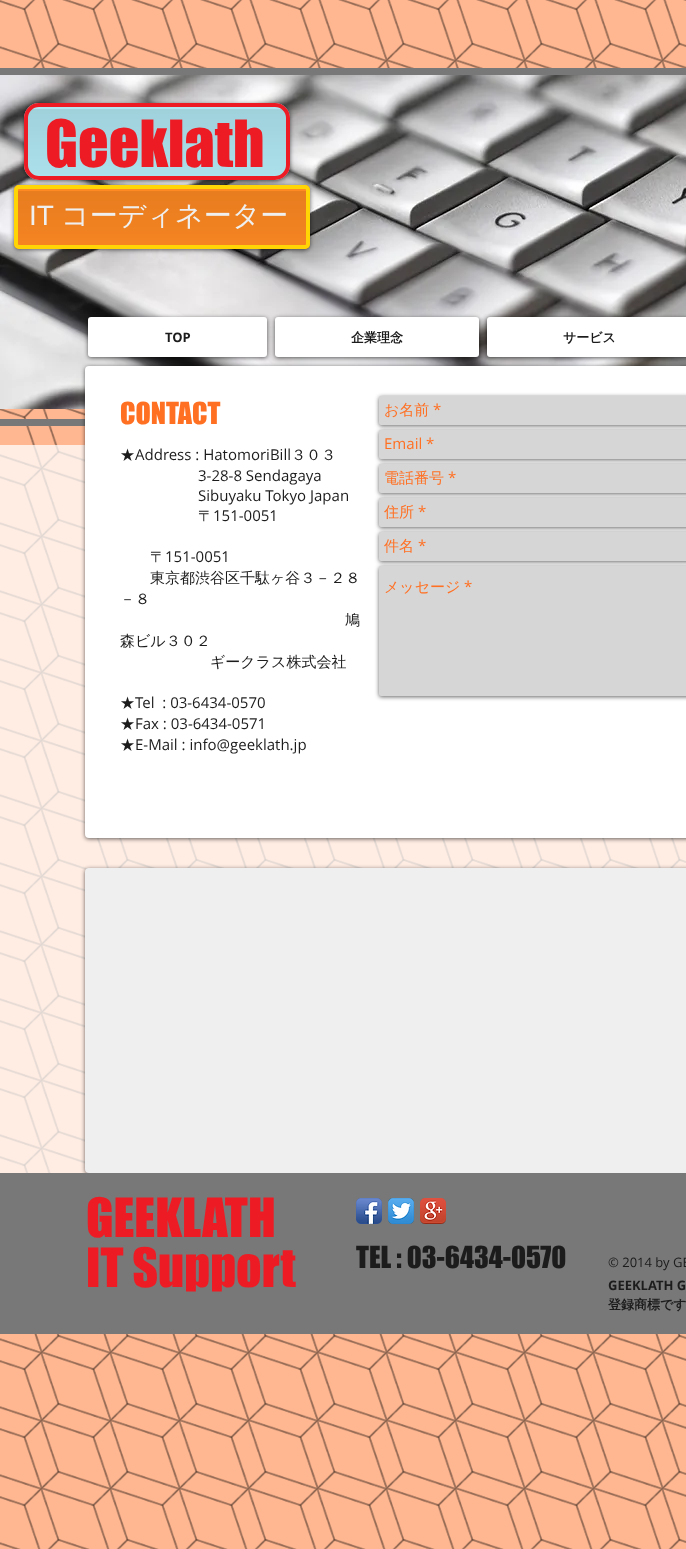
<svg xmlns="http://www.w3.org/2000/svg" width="686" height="1549">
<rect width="100%" height="100%" fill="#ffb791"/>
<image x="0" y="0" width="686" height="1549" href="media/1.png"/>
<rect y="68" width="686" height="7" fill="#787878"/>
<image x="0" y="75" width="686" height="334" href="media/2.png"/>
<rect x="24" y="104" width="266" height="77" rx="15" fill="#00000099" filter="blur(2px)"/>
<rect x="24" y="103" width="266" height="77" rx="15" fill="#b0e7f2"/>
<image x="24" y="109" width="266" height="67" href="media/3.png"/>
<rect x="26" y="105" width="262" height="73" rx="13" fill="none" stroke="#ed1c24" stroke-width="4"/>
<text x="45" y="167" style="font-family:'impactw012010';font-size:60px;fill:#ed1c24">Geeklath</text>
<rect x="14" y="186" width="296" height="64" rx="5" fill="#00000099" filter="blur(2px)"/>
<rect x="14" y="185" width="296" height="64" rx="5" fill="#ff8a23"/>
<image x="14" y="191" width="296" height="58" href="media/4.png"/>
<rect x="16" y="187" width="292" height="60" rx="3" fill="none" stroke="#ffd505" stroke-width="4"/>
<text x="29" y="225" style="font-family:Liberation Sans;font-size:28px;fill:#efefef">IT</text>
<text x="61" y="225" style="font-family:WenQuanYi Zen Hei;font-size:28px;font-weight:500;fill:#efefef">コーディネーター</text>
<rect x="88" y="318" width="179" height="40" rx="3" fill="#00000099" filter="blur(2px)"/>
<rect x="88" y="317" width="179" height="40" rx="3" fill="#fff"/>
<text x="165" y="342" style="font-family:Open Sans;font-size:13px;font-weight:bold;fill:#1c1c1c">TOP</text>
<rect x="275" y="318" width="204" height="40" rx="3" fill="#00000099" filter="blur(2px)"/>
<rect x="275" y="317" width="204" height="40" rx="3" fill="#fff"/>
<text x="351" y="342" style="font-family:WenQuanYi Zen Hei;font-size:13px;font-weight:bold;fill:#1c1c1c">企業理念</text>
<rect x="487" y="318" width="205" height="40" rx="3" fill="#00000099" filter="blur(2px)"/>
<rect x="487" y="317" width="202" height="40" rx="3" fill="#fff"/>
<text x="563" y="342" style="font-family:WenQuanYi Zen Hei;font-size:13px;font-weight:bold;fill:#1c1c1c">サービス</text>
<rect y="419" width="85" height="7" fill="#787878"/>
<rect y="445" width="686" height="728" fill="#ffffffbf"/>
<rect x="85" y="367" width="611" height="472" rx="4" fill="#00000099" filter="blur(2px)"/>
<rect x="85" y="366" width="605" height="472" rx="4" fill="#fff"/>
<text x="120" y="424" style="font-family:'impactw012010';font-size:28px;fill:#ff7023">CONTACT</text>
<rect x="379" y="397" width="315" height="29" rx="2" fill="#00000099" filter="blur(2px)"/>
<rect x="379" y="396" width="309" height="29" rx="2" fill="#d6d6d6"/>
<text x="384" y="415" style="font-family:WenQuanYi Zen Hei;font-size:15px;font-weight:500;fill:#ff7023">お名前</text>
<text x="433" y="415" style="font-family:Open Sans;font-size:15px;fill:#ff7023">*</text>
<rect x="379" y="431" width="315" height="29" rx="2" fill="#00000099" filter="blur(2px)"/>
<rect x="379" y="430" width="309" height="29" rx="2" fill="#d6d6d6"/>
<text x="384" y="449" style="font-family:Open Sans;font-size:15px;fill:#ff7023">Email *</text>
<rect x="379" y="465" width="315" height="29" rx="2" fill="#00000099" filter="blur(2px)"/>
<rect x="379" y="464" width="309" height="29" rx="2" fill="#d6d6d6"/>
<text x="384" y="483" style="font-family:WenQuanYi Zen Hei;font-size:15px;font-weight:500;fill:#ff7023">電話番号</text>
<text x="448" y="483" style="font-family:Open Sans;font-size:15px;fill:#ff7023">*</text>
<rect x="379" y="499" width="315" height="29" rx="2" fill="#00000099" filter="blur(2px)"/>
<rect x="379" y="498" width="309" height="29" rx="2" fill="#d6d6d6"/>
<text x="384" y="517" style="font-family:WenQuanYi Zen Hei;font-size:15px;font-weight:500;fill:#ff7023">住所</text>
<text x="418" y="517" style="font-family:Open Sans;font-size:15px;fill:#ff7023">*</text>
<rect x="379" y="533" width="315" height="29" rx="2" fill="#00000099" filter="blur(2px)"/>
<rect x="379" y="532" width="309" height="29" rx="2" fill="#d6d6d6"/>
<text x="384" y="551" style="font-family:WenQuanYi Zen Hei;font-size:15px;font-weight:500;fill:#ff7023">件名</text>
<text x="418" y="551" style="font-family:Open Sans;font-size:15px;fill:#ff7023">*</text>
<rect x="379" y="567" width="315" height="130" rx="2" fill="#00000099" filter="blur(2px)"/>
<rect x="379" y="566" width="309" height="130" rx="2" fill="#d6d6d6"/>
<text x="384" y="592" style="font-family:WenQuanYi Zen Hei;font-size:15px;font-weight:500;fill:#ff7023">メッセージ</text>
<text x="464" y="592" style="font-family:Open Sans;font-size:15px;fill:#ff7023">*</text>
<text x="120" y="460" style="font-family:WenQuanYi Zen Hei;font-size:15px;font-weight:500;fill:#1c1c1c">★</text>
<text x="135" y="460" style="font-family:Open Sans;font-size:15px;fill:#1c1c1c">Address : HatomoriBill</text>
<text x="291" y="460" style="font-family:WenQuanYi Zen Hei;font-size:15px;font-weight:500;fill:#1c1c1c">３０３</text>
<text x="198" y="481" style="font-family:Open Sans;font-size:15px;fill:#1c1c1c">3-28-8 Sendagaya</text>
<text x="198" y="501" style="font-family:Open Sans;font-size:15px;fill:#1c1c1c">Sibuyaku Tokyo Japan</text>
<text x="198" y="521" style="font-family:WenQuanYi Zen Hei;font-size:15px;font-weight:500;fill:#1c1c1c">〒</text>
<text x="213" y="521" style="font-family:Open Sans;font-size:15px;fill:#1c1c1c">151-0051</text>
<text x="150" y="562" style="font-family:WenQuanYi Zen Hei;font-size:15px;font-weight:500;fill:#1c1c1c">〒</text>
<text x="165" y="562" style="font-family:Open Sans;font-size:15px;fill:#1c1c1c">151-0051</text>
<text x="150" y="583" style="font-family:WenQuanYi Zen Hei;font-size:15px;font-weight:500;fill:#1c1c1c">東京都渋谷区千駄ヶ谷３－２８</text>
<text x="120" y="604" style="font-family:WenQuanYi Zen Hei;font-size:15px;font-weight:500;fill:#1c1c1c">－８</text>
<text x="345" y="625" style="font-family:WenQuanYi Zen Hei;font-size:15px;font-weight:500;fill:#1c1c1c">鳩</text>
<text x="120" y="646" style="font-family:WenQuanYi Zen Hei;font-size:15px;font-weight:500;fill:#1c1c1c">森ビル３０２</text>
<text x="210" y="667" style="font-family:WenQuanYi Zen Hei;font-size:15px;font-weight:500;fill:#1c1c1c">ギークラス株式会社</text>
<text x="120" y="708" style="font-family:WenQuanYi Zen Hei;font-size:15px;font-weight:500;fill:#1c1c1c">★</text>
<text x="135" y="708" style="font-family:Open Sans;font-size:15px;fill:#1c1c1c" xml:space="preserve">Tel  : 03-6434-0570</text>
<text x="120" y="729" style="font-family:WenQuanYi Zen Hei;font-size:15px;font-weight:500;fill:#1c1c1c">★</text>
<text x="135" y="729" style="font-family:Open Sans;font-size:15px;fill:#1c1c1c">Fax : 03-6434-0571</text>
<text x="120" y="750" style="font-family:WenQuanYi Zen Hei;font-size:15px;font-weight:500;fill:#1c1c1c">★</text>
<text x="135" y="750" style="font-family:Open Sans;font-size:15px;fill:#1c1c1c">E-Mail : info@geeklath.jp</text>
<rect x="85" y="869" width="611" height="305" rx="4" fill="#00000099" filter="blur(2px)"/>
<rect x="85" y="868" width="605" height="305" rx="4" fill="#efefef"/>
<rect y="1173" width="686" height="161" fill="#787878"/>
<text x="86" y="1237" style="font-family:'impactw012010';font-size:50px;fill:#ed1c24">GEEKLATH</text>
<text x="86" y="1287" style="font-family:'impactw012010';font-size:50px;fill:#ed1c24">IT Support</text>
<image x="356" y="1198" width="26" height="26" href="media/5.png"/>
<image x="388" y="1198" width="26" height="26" href="media/6.png"/>
<image x="420" y="1198" width="26" height="26" href="media/7.png"/>
<text x="356" y="1268" style="font-family:'impactw012010';font-size:28px;fill:#1c1c1c">TEL : 03-6434-0570</text>
<text x="608" y="1267" style="font-family:Open Sans;font-size:13px;fill:#1c1c1c">© 2014 by GE</text>
<text x="608" y="1290" style="font-family:Open Sans;font-size:13px;font-weight:bold;fill:#1c1c1c">GEEKLATH G</text>
<text x="608" y="1309" style="font-family:WenQuanYi Zen Hei;font-size:13px;font-weight:bold;fill:#1c1c1c">登録商標です</text>
</svg>
